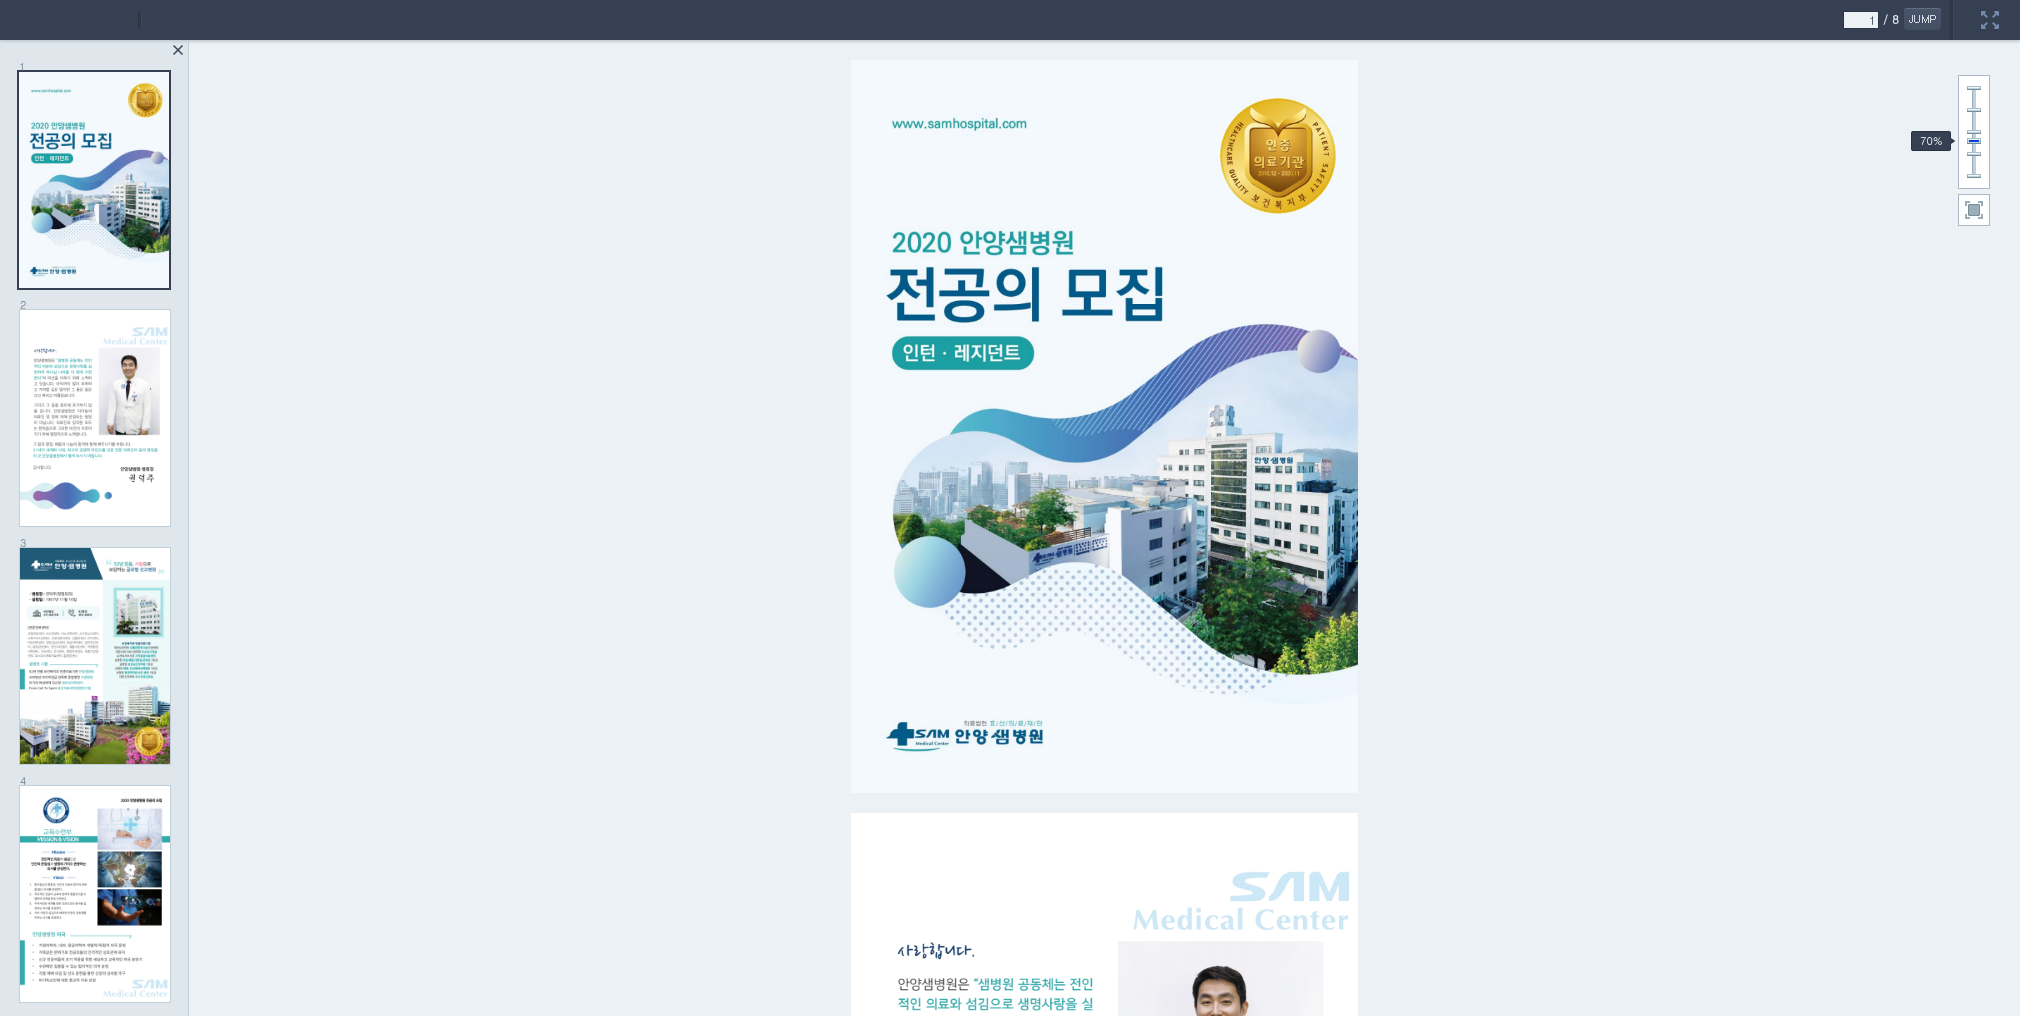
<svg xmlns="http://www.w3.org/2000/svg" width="2020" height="1016">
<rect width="100%" height="100%" fill="#ebf1f5"/>
<rect y="40" width="188" height="976" fill="#dfe7ed"/>
<rect x="188" y="40" width="1" height="976" fill="#c0d0d9"/>
<image x="173" y="45" width="10" height="10" href="media/5.png"/>
<rect y="2" width="2020" height="40" fill="#c3cdd3" filter="blur(1px)"/>
<rect width="2020" height="40" fill="#354052"/>
<image x="138" y="12" width="4" height="16" href="media/1.png"/>
<rect x="1843.5" y="11.5" width="35" height="17" fill="#ebf1f5" stroke="#2c3646"/>
<text x="1869" y="25" style="font-family:Dotum;font-size:12px;fill:#2c3646">1</text>
<text x="1883" y="24" style="font-family:Dotum;font-size:12px;font-weight:bold;fill:#e8ebf3">/ 8</text>
<image x="1904" y="8" width="37" height="22" href="media/2.png"/>
<image x="1950" y="0" width="4" height="40" href="media/3.png"/>
<image x="1981" y="11" width="18" height="18" href="media/4.png"/>
<rect x="18" y="71" width="152" height="218" fill="none" stroke="#354052" stroke-width="2"/>
<text x="19" y="71" style="font-family:Dotum;font-size:11px;fill:#6f7a8b">1</text>
<image x="19" y="72" width="150" height="216" href="media/6.png"/>
<rect x="19.5" y="309.5" width="151" height="217" fill="#fff" stroke="#c0d0d9"/>
<text x="20" y="309" style="font-family:Dotum;font-size:11px;fill:#6f7a8b">2</text>
<image x="20" y="327" width="148" height="183" href="media/7.png"/>
<rect x="19.5" y="547.5" width="151" height="217" fill="none" stroke="#c0d0d9"/>
<text x="20" y="547" style="font-family:Dotum;font-size:11px;fill:#6f7a8b">3</text>
<image x="20" y="548" width="150" height="216" href="media/8.png"/>
<rect x="19.5" y="785.5" width="151" height="217" fill="#fff" stroke="#c0d0d9"/>
<text x="20" y="785" style="font-family:Dotum;font-size:11px;fill:#6f7a8b">4</text>
<image x="20" y="796" width="150" height="201" href="media/9.png"/>
<image x="851" y="60" width="507" height="733" href="media/10.png"/>
<image x="851" y="813" width="507" height="203" href="media/11.png"/>
<image x="1958" y="75" width="32" height="114" href="media/12.png"/>
<image x="1967" y="86" width="14" height="4" href="media/13.png"/>
<image x="1967" y="108" width="14" height="4" href="media/13.png"/>
<image x="1967" y="130" width="14" height="4" href="media/13.png"/>
<image x="1911" y="131" width="44" height="20" href="media/14.png"/>
<text x="1920" y="145" style="font-family:Dotum;font-size:11px;fill:#fff">70%</text>
<image x="1967" y="138" width="14" height="6" href="media/15.png"/>
<image x="1967" y="152" width="14" height="4" href="media/13.png"/>
<image x="1967" y="174" width="14" height="4" href="media/13.png"/>
<image x="1958" y="194" width="32" height="32" href="media/16.png"/>
</svg>
